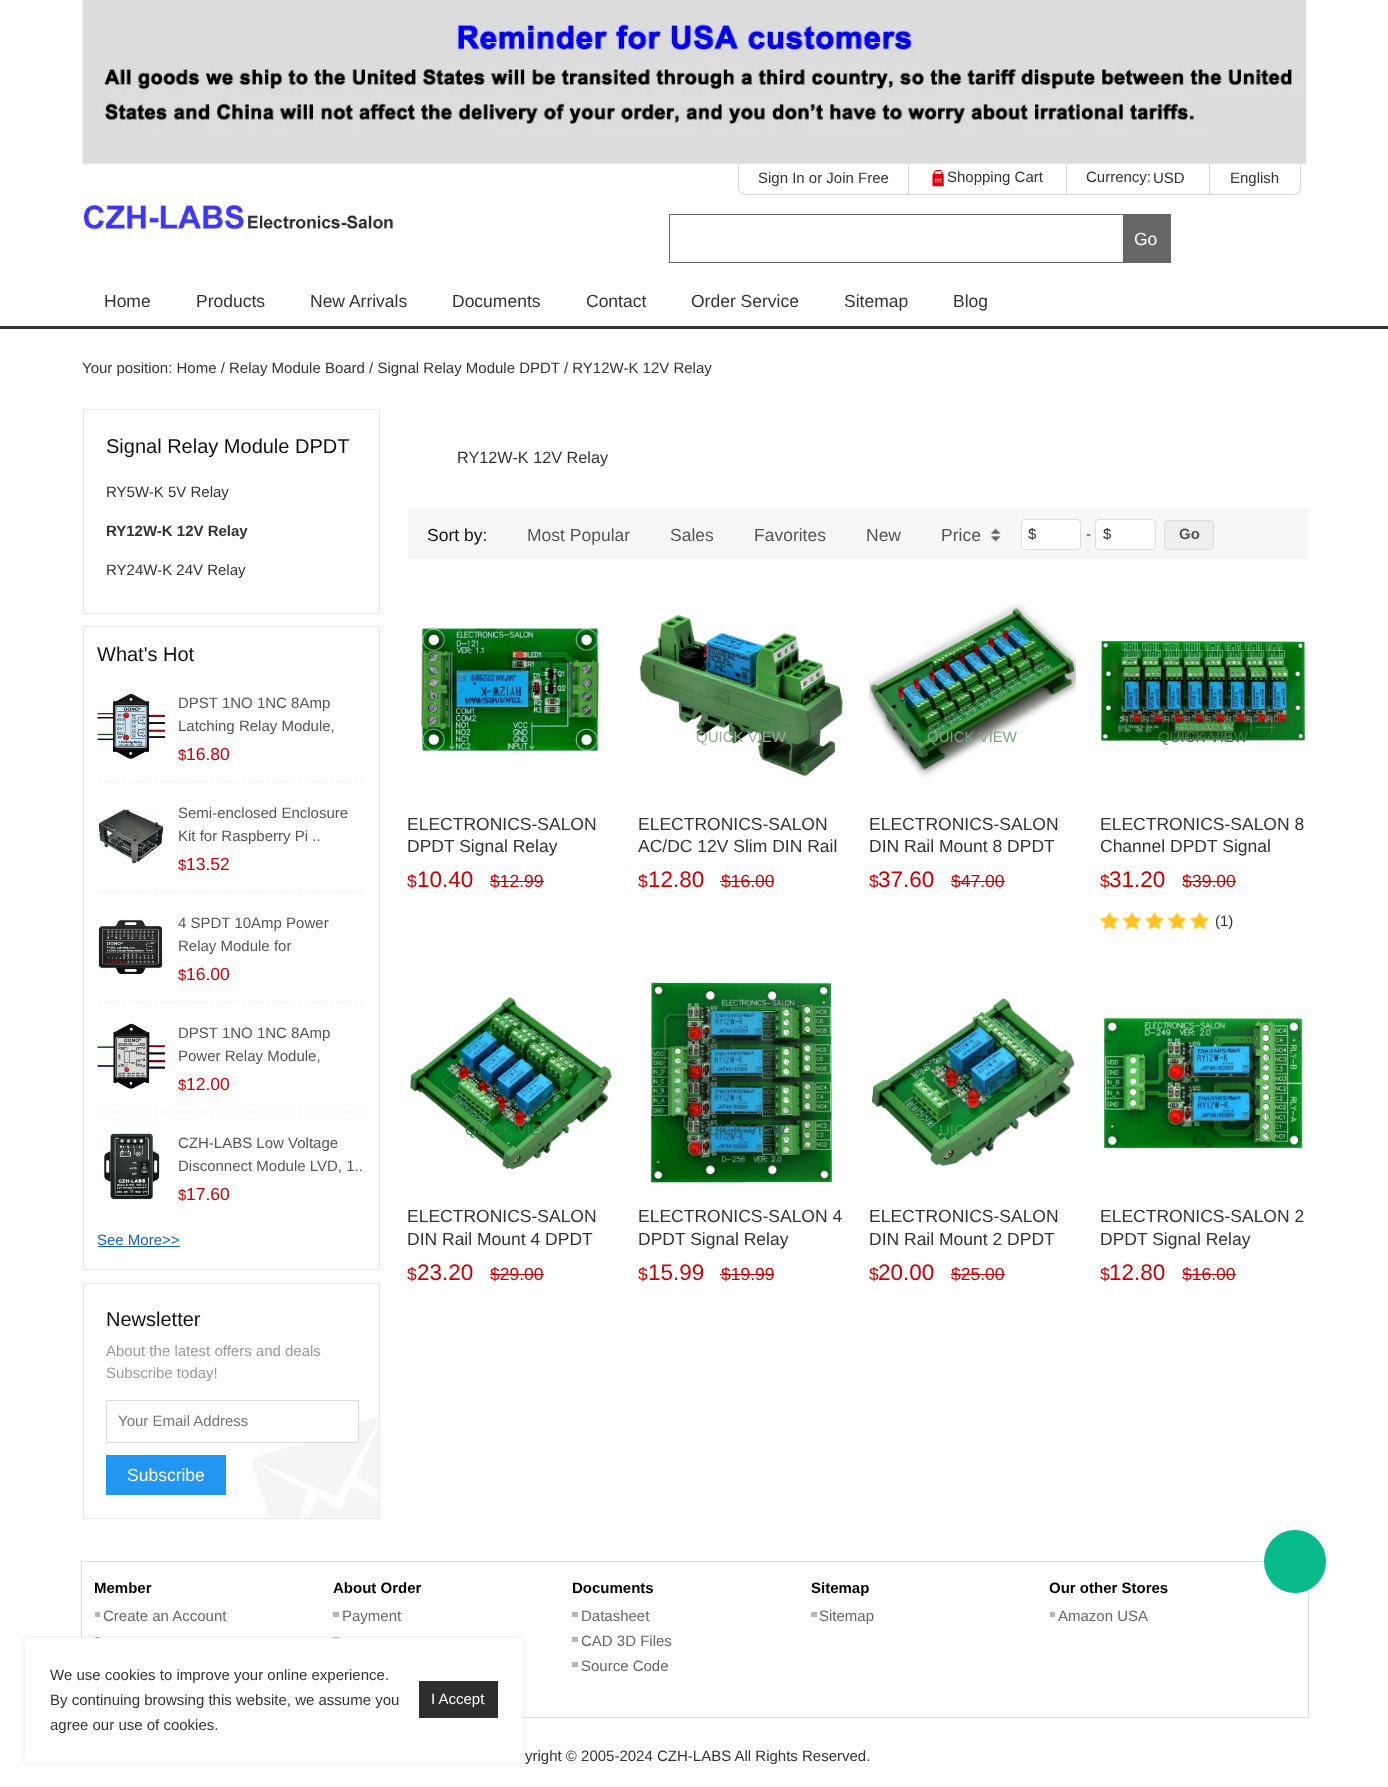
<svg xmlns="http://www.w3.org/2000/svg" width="1388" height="1787">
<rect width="100%" height="100%" fill="#fff"/>
<image x="82" y="0" width="1225" height="164" href="media/1.png"/>
<image x="82" y="204" width="311" height="30" href="media/2.png"/>
<path d="M738 164h563v24c0 4-3 7-7 7h-549c-4 0-7-3-7-7zm1 0h561v24c0 3-3 6-6 6h-549c-3 0-6-3-6-6z" fill="#d6d6d6" fill-rule="evenodd"/>
<text x="758" y="183" style="font-family:Liberation Sans;font-size:15px;fill:#333">Sign In or Join Free</text>
<rect x="908" y="164" width="1" height="30" fill="#d6d6d6"/>
<image x="932" y="170" width="12" height="17" href="media/3.png"/>
<text x="947" y="182" style="font-family:Liberation Sans;font-size:15px;fill:#333">Shopping Cart</text>
<rect x="1066" y="164" width="1" height="30" fill="#d6d6d6"/>
<text x="1086" y="182" style="font-family:Liberation Sans;font-size:15px;fill:#333">Currency:</text>
<text x="1153" y="183" style="font-family:Liberation Sans;font-size:15px;fill:#333">USD</text>
<rect x="1209" y="164" width="1" height="30" fill="#d6d6d6"/>
<text x="1230" y="183" style="font-family:Liberation Sans;font-size:15px;fill:#333">English</text>
<rect x="669.5" y="214.5" width="501" height="48" fill="none" stroke="#666"/>
<rect x="1123" y="215" width="47" height="47" fill="#666"/>
<text x="1134" y="245" style="font-family:Liberation Sans;font-size:17.5px;fill:#fff">Go</text>
<rect y="326" width="1388" height="3" fill="#333"/>
<text x="104" y="307" style="font-family:Liberation Sans;font-size:17.5px;fill:#333">Home</text>
<text x="196" y="307" style="font-family:Liberation Sans;font-size:17.5px;fill:#333">Products</text>
<text x="310" y="307" style="font-family:Liberation Sans;font-size:17.5px;fill:#333">New Arrivals</text>
<text x="452" y="307" style="font-family:Liberation Sans;font-size:17.5px;fill:#333">Documents</text>
<text x="586" y="307" style="font-family:Liberation Sans;font-size:17.5px;fill:#333">Contact</text>
<text x="691" y="307" style="font-family:Liberation Sans;font-size:17.5px;fill:#333">Order Service</text>
<text x="844" y="307" style="font-family:Liberation Sans;font-size:17.5px;fill:#333">Sitemap</text>
<text x="953" y="307" style="font-family:Liberation Sans;font-size:17.5px;fill:#333">Blog</text>
<text x="82" y="373" style="font-family:Liberation Sans;font-size:15px;fill:#333">Your position: Home / Relay Module Board / Signal Relay Module DPDT / RY12W-K 12V Relay</text>
<rect x="83.5" y="409.5" width="296" height="204" fill="none" stroke="#e7e7e7"/>
<text x="106" y="453" style="font-family:Liberation Sans;font-size:20px;fill:#111">Signal Relay Module DPDT</text>
<text x="106" y="497" style="font-family:Liberation Sans;font-size:15px;fill:#333">RY5W-K 5V Relay</text>
<text x="106" y="536" style="font-family:Liberation Sans;font-size:15px;font-weight:bold;fill:#333">RY12W-K 12V Relay</text>
<text x="106" y="575" style="font-family:Liberation Sans;font-size:15px;fill:#333">RY24W-K 24V Relay</text>
<rect x="83.5" y="626.5" width="296" height="643" fill="none" stroke="#e7e7e7"/>
<text x="97" y="661" style="font-family:Liberation Sans;font-size:20px;fill:#111">What's Hot</text>
<image x="97" y="693" width="68" height="66" href="media/4.png"/>
<text x="178" y="708" style="font-family:Liberation Sans;font-size:15px;fill:#555">DPST 1NO 1NC 8Amp</text>
<text x="178" y="731" style="font-family:Liberation Sans;font-size:15px;fill:#555">Latching Relay Module,</text>
<text x="178" y="760" style="font-family:Liberation Sans;font-size:15px;fill:#c00">$</text>
<text x="186" y="760" style="font-family:Liberation Sans;font-size:17.5px;fill:#c00">16.80</text>
<path d="M97.5 782h267.5" fill="none" stroke="#eee" stroke-width="1.2" stroke-dasharray="3.75 2.52"/>
<image x="98" y="809" width="66" height="55" href="media/5.png"/>
<text x="178" y="818" style="font-family:Liberation Sans;font-size:15px;fill:#555">Semi-enclosed Enclosure</text>
<text x="178" y="841" style="font-family:Liberation Sans;font-size:15px;fill:#555">Kit for Raspberry Pi ..</text>
<text x="178" y="870" style="font-family:Liberation Sans;font-size:15px;fill:#c00">$</text>
<text x="186" y="870" style="font-family:Liberation Sans;font-size:17.5px;fill:#c00">13.52</text>
<path d="M97.5 892h267.5" fill="none" stroke="#eee" stroke-width="1.2" stroke-dasharray="3.75 2.52"/>
<image x="98" y="919" width="65" height="56" href="media/6.png"/>
<text x="178" y="928" style="font-family:Liberation Sans;font-size:15px;fill:#555">4 SPDT 10Amp Power</text>
<text x="178" y="951" style="font-family:Liberation Sans;font-size:15px;fill:#555">Relay Module for</text>
<text x="178" y="980" style="font-family:Liberation Sans;font-size:15px;fill:#c00">$</text>
<text x="186" y="980" style="font-family:Liberation Sans;font-size:17.5px;fill:#c00">16.00</text>
<path d="M97.5 1002h267.5" fill="none" stroke="#eee" stroke-width="1.2" stroke-dasharray="3.75 2.52"/>
<image x="97" y="1023" width="68" height="66" href="media/7.png"/>
<text x="178" y="1038" style="font-family:Liberation Sans;font-size:15px;fill:#555">DPST 1NO 1NC 8Amp</text>
<text x="178" y="1061" style="font-family:Liberation Sans;font-size:15px;fill:#555">Power Relay Module,</text>
<text x="178" y="1090" style="font-family:Liberation Sans;font-size:15px;fill:#c00">$</text>
<text x="186" y="1090" style="font-family:Liberation Sans;font-size:17.5px;fill:#c00">12.00</text>
<path d="M97.5 1112h267.5" fill="none" stroke="#eee" stroke-width="1.2" stroke-dasharray="3.75 2.52"/>
<image x="104" y="1133" width="56" height="67" href="media/8.png"/>
<text x="178" y="1148" style="font-family:Liberation Sans;font-size:15px;fill:#555">CZH-LABS Low Voltage</text>
<text x="178" y="1171" style="font-family:Liberation Sans;font-size:15px;fill:#555">Disconnect Module LVD, 1..</text>
<text x="178" y="1200" style="font-family:Liberation Sans;font-size:15px;fill:#c00">$</text>
<text x="186" y="1200" style="font-family:Liberation Sans;font-size:17.5px;fill:#c00">17.60</text>
<text x="97" y="1245" style="font-family:Liberation Sans;font-size:15px;fill:#1363bc">See More&gt;&gt;</text>
<rect x="98" y="1246" width="82" height="1" fill="#1363bc"/>
<image x="252" y="1416" width="127" height="102" href="media/9.png"/>
<rect x="83.5" y="1283.5" width="296" height="235" fill="none" stroke="#e7e7e7"/>
<text x="106" y="1326" style="font-family:Liberation Sans;font-size:20px;fill:#111">Newsletter</text>
<text x="106" y="1356" style="font-family:Liberation Sans;font-size:15px;fill:#999">About the latest offers and deals</text>
<text x="106" y="1378" style="font-family:Liberation Sans;font-size:15px;fill:#999">Subscribe today!</text>
<rect x="301" y="1423" width="57" height="19" fill="#fff"/>
<rect x="106.5" y="1400.5" width="252" height="42" fill="none" stroke="#ddd"/>
<text x="118" y="1426" style="font-family:Liberation Sans;font-size:15px;fill:#757575">Your Email Address</text>
<rect x="106" y="1455" width="120" height="40" fill="#2196f3"/>
<text x="127" y="1481" style="font-family:Liberation Sans;font-size:17.5px;fill:#fff">Subscribe</text>
<text x="457" y="463" style="font-family:Liberation Sans;font-size:16.25px;fill:#333">RY12W-K 12V Relay</text>
<rect x="408" y="509" width="900" height="50" fill="#f7f7f7"/>
<text x="427" y="541" style="font-family:Liberation Sans;font-size:17.5px;fill:#111">Sort by:</text>
<text x="527" y="541" style="font-family:Liberation Sans;font-size:17.5px;fill:#555">Most Popular</text>
<text x="670" y="541" style="font-family:Liberation Sans;font-size:17.5px;fill:#555">Sales</text>
<text x="754" y="541" style="font-family:Liberation Sans;font-size:17.5px;fill:#555">Favorites</text>
<text x="866" y="541" style="font-family:Liberation Sans;font-size:17.5px;fill:#555">New</text>
<text x="941" y="541" style="font-family:Liberation Sans;font-size:17.5px;fill:#555">Price</text>
<image x="991" y="528" width="10" height="14" href="media/10.png"/>
<rect x="1021.5" y="519.5" width="59" height="30" rx="3.5" fill="#fff" stroke="#ddd"/>
<text x="1028" y="539" style="font-family:Liberation Sans;font-size:15px;fill:#333">$</text>
<text x="1086" y="539" style="font-family:Liberation Sans;font-size:15px;fill:#333">-</text>
<rect x="1095.5" y="519.5" width="60" height="30" rx="3.5" fill="#fff" stroke="#ddd"/>
<text x="1103" y="539" style="font-family:Liberation Sans;font-size:15px;fill:#333">$</text>
<rect x="1164.5" y="520.5" width="49" height="29" rx="3.5" fill="#eee" stroke="#ddd"/>
<text x="1179" y="539" style="font-family:Liberation Sans;font-size:15px;font-weight:bold;fill:#555">Go</text>
<image x="420" y="627" width="182" height="125" href="media/11.png"/>
<text x="407" y="830" style="font-family:Liberation Sans;font-size:17.5px;fill:#333">ELECTRONICS-SALON</text>
<text x="407" y="852" style="font-family:Liberation Sans;font-size:17.5px;fill:#333">DPDT Signal Relay</text>
<text x="407" y="887" style="font-family:Liberation Sans;font-size:17.5px;fill:#c00">$</text>
<text x="417" y="887" style="font-family:Liberation Sans;font-size:22.5px;fill:#c00">10.40</text>
<text x="490" y="887" style="font-family:Liberation Sans;font-size:17.5px;fill:#c00">$12.99</text>
<rect x="490" y="881" width="54" height="1" fill="#c00"/>
<image x="639" y="613" width="205" height="164" href="media/12.png"/>
<text x="696" y="742" style="font-family:Liberation Sans;font-size:15px;fill:#98a999">QUICK VIEW</text>
<text x="638" y="830" style="font-family:Liberation Sans;font-size:17.5px;fill:#333">ELECTRONICS-SALON</text>
<text x="638" y="852" style="font-family:Liberation Sans;font-size:17.5px;fill:#333">AC/DC 12V Slim DIN Rail</text>
<text x="638" y="887" style="font-family:Liberation Sans;font-size:17.5px;fill:#c00">$</text>
<text x="648" y="887" style="font-family:Liberation Sans;font-size:22.5px;fill:#c00">12.80</text>
<text x="721" y="887" style="font-family:Liberation Sans;font-size:17.5px;fill:#c00">$16.00</text>
<rect x="720" y="881" width="54" height="1" fill="#c00"/>
<image x="869" y="603" width="207" height="175" href="media/13.png"/>
<text x="927" y="742" style="font-family:Liberation Sans;font-size:15px;fill:#879f86">QUICK VIEW</text>
<text x="869" y="830" style="font-family:Liberation Sans;font-size:17.5px;fill:#333">ELECTRONICS-SALON</text>
<text x="869" y="852" style="font-family:Liberation Sans;font-size:17.5px;fill:#333">DIN Rail Mount 8 DPDT</text>
<text x="869" y="887" style="font-family:Liberation Sans;font-size:17.5px;fill:#c00">$</text>
<text x="878" y="887" style="font-family:Liberation Sans;font-size:22.5px;fill:#c00">37.60</text>
<text x="951" y="887" style="font-family:Liberation Sans;font-size:17.5px;fill:#c00">$47.00</text>
<rect x="951" y="881" width="54" height="1" fill="#c00"/>
<image x="1100" y="639" width="206" height="105" href="media/14.png"/>
<text x="1158" y="742" style="font-family:Liberation Sans;font-size:15px;fill:#45784a">QUICK VIEW</text>
<text x="1100" y="830" style="font-family:Liberation Sans;font-size:17.5px;fill:#333">ELECTRONICS-SALON 8</text>
<text x="1100" y="852" style="font-family:Liberation Sans;font-size:17.5px;fill:#333">Channel DPDT Signal</text>
<text x="1100" y="887" style="font-family:Liberation Sans;font-size:17.5px;fill:#c00">$</text>
<text x="1109" y="887" style="font-family:Liberation Sans;font-size:22.5px;fill:#c00">31.20</text>
<text x="1182" y="887" style="font-family:Liberation Sans;font-size:17.5px;fill:#c00">$</text>
<rect x="1183" y="881" width="10" height="1" fill="#c00"/>
<rect x="1193" y="881" width="43" height="1" fill="#c00"/>
<text x="1192" y="887" style="font-family:Liberation Sans;font-size:17.5px;fill:#c00">39.00</text>
<image x="1100" y="911" width="19" height="18" href="media/15.png"/>
<image x="1122" y="911" width="20" height="18" href="media/16.png"/>
<image x="1145" y="911" width="19" height="18" href="media/15.png"/>
<image x="1167" y="911" width="20" height="18" href="media/16.png"/>
<image x="1190" y="911" width="19" height="18" href="media/17.png"/>
<text x="1215" y="926" style="font-family:Liberation Sans;font-size:15px;fill:#333">(1)</text>
<image x="409" y="995" width="204" height="175" href="media/18.png"/>
<text x="465" y="1135" style="font-family:Liberation Sans;font-size:15px;fill:#328440">QUICK VIEW</text>
<text x="407" y="1222" style="font-family:Liberation Sans;font-size:17.5px;fill:#333">ELECTRONICS-SALON</text>
<text x="407" y="1245" style="font-family:Liberation Sans;font-size:17.5px;fill:#333">DIN Rail Mount 4 DPDT</text>
<text x="407" y="1280" style="font-family:Liberation Sans;font-size:17.5px;fill:#c00">$</text>
<text x="417" y="1280" style="font-family:Liberation Sans;font-size:22.5px;fill:#c00">23.20</text>
<text x="490" y="1280" style="font-family:Liberation Sans;font-size:17.5px;fill:#c00">$29.00</text>
<rect x="490" y="1274" width="54" height="1" fill="#c00"/>
<image x="649" y="982" width="185" height="203" href="media/19.png"/>
<text x="696" y="1135" style="font-family:Liberation Sans;font-size:15px;fill:#296466">QUICK VIEW</text>
<text x="638" y="1222" style="font-family:Liberation Sans;font-size:17.5px;fill:#333">ELECTRONICS-SALON 4</text>
<text x="638" y="1245" style="font-family:Liberation Sans;font-size:17.5px;fill:#333">DPDT Signal Relay</text>
<text x="638" y="1280" style="font-family:Liberation Sans;font-size:17.5px;fill:#c00">$</text>
<text x="648" y="1280" style="font-family:Liberation Sans;font-size:22.5px;fill:#c00">15.99</text>
<text x="721" y="1280" style="font-family:Liberation Sans;font-size:17.5px;fill:#c00">$19.99</text>
<rect x="720" y="1274" width="54" height="1" fill="#c00"/>
<image x="871" y="998" width="204" height="169" href="media/20.png"/>
<text x="939" y="1135" style="font-family:Liberation Sans;font-size:15px;fill:#50955a">UIC</text>
<text x="869" y="1222" style="font-family:Liberation Sans;font-size:17.5px;fill:#333">ELECTRONICS-SALON</text>
<text x="869" y="1245" style="font-family:Liberation Sans;font-size:17.5px;fill:#333">DIN Rail Mount 2 DPDT</text>
<text x="869" y="1280" style="font-family:Liberation Sans;font-size:17.5px;fill:#c00">$</text>
<text x="878" y="1280" style="font-family:Liberation Sans;font-size:22.5px;fill:#c00">20.00</text>
<text x="951" y="1280" style="font-family:Liberation Sans;font-size:17.5px;fill:#c00">$25.00</text>
<rect x="951" y="1274" width="54" height="1" fill="#c00"/>
<image x="1103" y="1015" width="202" height="135" href="media/21.png"/>
<text x="1100" y="1222" style="font-family:Liberation Sans;font-size:17.5px;fill:#333">ELECTRONICS-SALON 2</text>
<text x="1100" y="1245" style="font-family:Liberation Sans;font-size:17.5px;fill:#333">DPDT Signal Relay</text>
<text x="1100" y="1280" style="font-family:Liberation Sans;font-size:17.5px;fill:#c00">$</text>
<text x="1109" y="1280" style="font-family:Liberation Sans;font-size:22.5px;fill:#c00">12.80</text>
<text x="1182" y="1280" style="font-family:Liberation Sans;font-size:17.5px;fill:#c00">$16.00</text>
<rect x="1183" y="1274" width="53" height="1" fill="#c00"/>
<rect x="81.5" y="1561.5" width="1227" height="156" fill="none" stroke="#ddd"/>
<rect x="1264" y="1530" width="62" height="63" rx="31" fill="#07bb8a"/>
<text x="94" y="1593" style="font-family:Liberation Sans;font-size:15px;font-weight:bold;fill:#000">Member</text>
<rect x="95" y="1612" width="5" height="5" fill="#b6b6b6"/>
<text x="103" y="1621" style="font-family:Liberation Sans;font-size:15px;fill:#666">Create an Account</text>
<rect x="95" y="1637" width="5" height="1" fill="#b6b6b6"/>
<text x="333" y="1593" style="font-family:Liberation Sans;font-size:15px;font-weight:bold;fill:#000">About Order</text>
<rect x="333" y="1612" width="6" height="5" fill="#b6b6b6"/>
<text x="342" y="1621" style="font-family:Liberation Sans;font-size:15px;fill:#666">Payment</text>
<rect x="333" y="1637" width="6" height="1" fill="#b6b6b6"/>
<text x="572" y="1593" style="font-family:Liberation Sans;font-size:15px;font-weight:bold;fill:#000">Documents</text>
<rect x="572" y="1612" width="6" height="5" fill="#b6b6b6"/>
<text x="581" y="1621" style="font-family:Liberation Sans;font-size:15px;fill:#666">Datasheet</text>
<rect x="572" y="1637" width="6" height="5" fill="#b6b6b6"/>
<text x="581" y="1646" style="font-family:Liberation Sans;font-size:15px;fill:#666">CAD 3D Files</text>
<rect x="572" y="1662" width="6" height="5" fill="#b6b6b6"/>
<text x="581" y="1671" style="font-family:Liberation Sans;font-size:15px;fill:#666">Source Code</text>
<text x="811" y="1593" style="font-family:Liberation Sans;font-size:15px;font-weight:bold;fill:#000">Sitemap</text>
<rect x="811" y="1612" width="6" height="5" fill="#b6b6b6"/>
<text x="819" y="1621" style="font-family:Liberation Sans;font-size:15px;fill:#666">Sitemap</text>
<text x="1049" y="1593" style="font-family:Liberation Sans;font-size:15px;font-weight:bold;fill:#000">Our other Stores</text>
<rect x="1050" y="1612" width="5" height="5" fill="#b6b6b6"/>
<text x="1058" y="1621" style="font-family:Liberation Sans;font-size:15px;fill:#666">Amazon USA</text>
<text x="525" y="1761" style="font-family:Liberation Sans;font-size:15px;fill:#333">yright © 2005-2024 CZH-LABS All Rights Reserved.</text>
<rect x="25" y="1638" width="498" height="125" rx="5" fill="#0000001a" filter="blur(3px)"/>
<rect x="25" y="1638" width="498" height="125" rx="5" fill="#fff"/>
<text x="50" y="1680" style="font-family:Liberation Sans;font-size:15px;fill:#333">We use cookies to improve your online experience.</text>
<text x="50" y="1705" style="font-family:Liberation Sans;font-size:15px;fill:#333">By continuing browsing this website, we assume you</text>
<text x="50" y="1730" style="font-family:Liberation Sans;font-size:15px;fill:#333">agree our use of cookies.</text>
<rect x="419" y="1681" width="79" height="37" fill="#2e2e2e"/>
<text x="431" y="1704" style="font-family:Liberation Sans;font-size:15px;fill:#fff">I Accept</text>
</svg>
